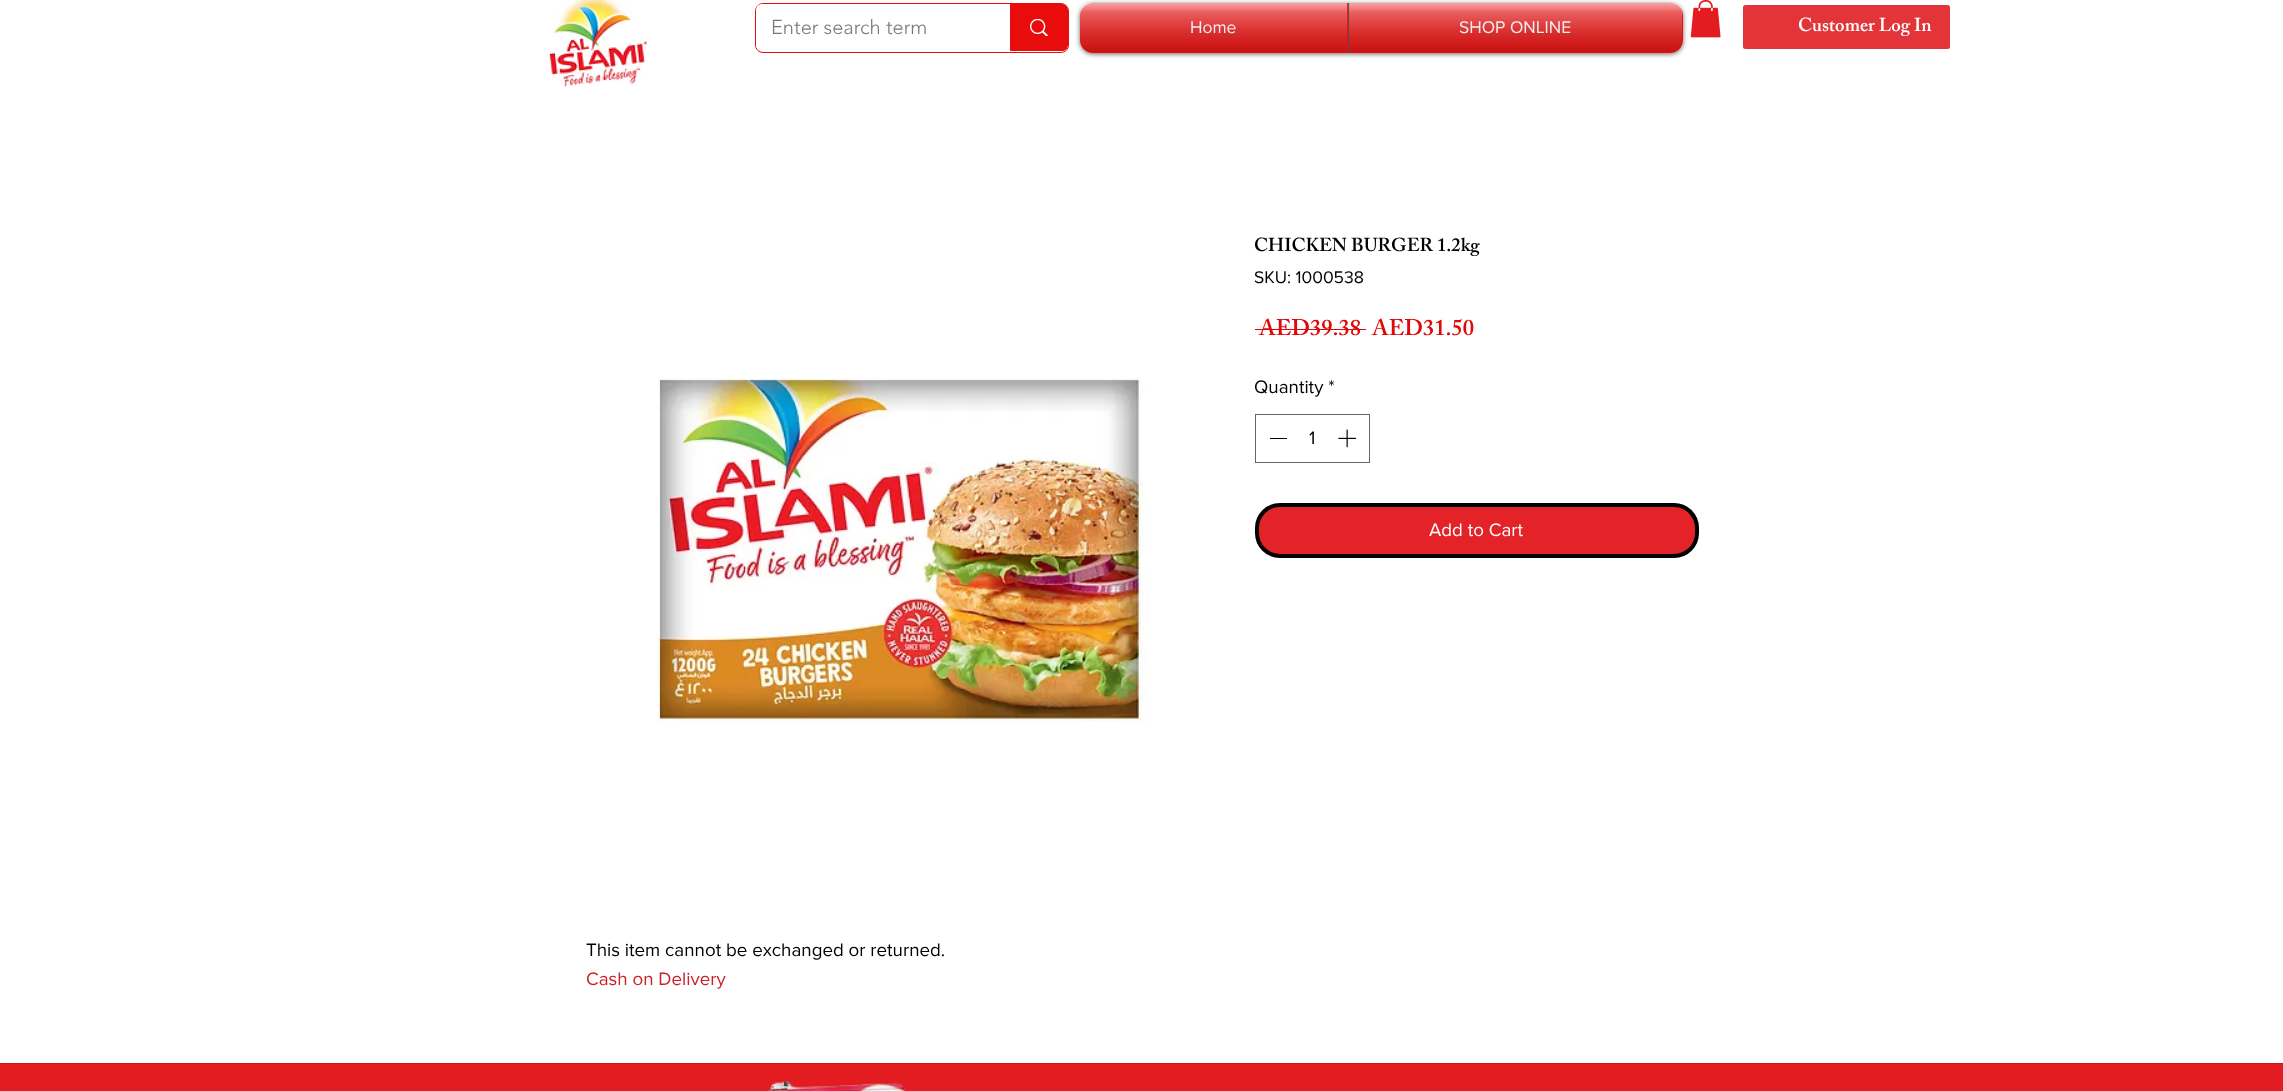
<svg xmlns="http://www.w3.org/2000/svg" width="2283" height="1091">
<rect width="100%" height="100%" fill="#fff"/>
<image x="548" y="0" width="100" height="87" href="media/1.png"/>
<rect x="755.5" y="3.5" width="313" height="49" rx="7.5" fill="none" stroke="#e80c0c"/>
<rect x="756" y="4" width="312" height="47" rx="6" fill="#fff"/>
<text x="771" y="34" style="font-family:'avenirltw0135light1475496';font-size:20px;font-weight:300;fill:#787878">Enter search term</text>
<path d="M1010 4h52c3.5 0 6 2.5 6 6v35c0 3.5-2.5 6-6 6h-52z" fill="#e80c0c"/>
<image x="1030" y="19" width="18" height="17" href="media/2.png"/>
<rect x="1080" y="4" width="603" height="50" rx="13" fill="#00000099" filter="blur(2.5px)"/>
<image x="1080" y="3" width="603" height="48" href="media/3.png"/>
<image x="1080" y="13" width="597" height="38" href="media/4.png"/>
<path d="M1093 3h255v50h-255c-7 0-13-6-13-13v-24c0-7 6-13 13-13z" fill="#e80c0c"/>
<text x="1190" y="33" style="font-family:'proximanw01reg';font-size:17.5px;fill:#fff">Home</text>
<image x="1080" y="3" width="268" height="49" href="media/5.png"/>
<image x="1080" y="11" width="268" height="41" href="media/6.png"/>
<path d="M1348 3h322c7 0 13 6 13 13v24c0 7-6 13-13 13h-322z" fill="#e80c0c"/>
<rect x="1348" y="3" width="1" height="50" fill="#4d4d4d"/>
<text x="1459" y="33" style="font-family:'proximanw01reg';font-size:17.5px;fill:#fff">SHOP ONLINE</text>
<image x="1348" y="3" width="335" height="49" href="media/7.png"/>
<image x="1349" y="11" width="333" height="41" href="media/8.png"/>
<image x="1690" y="0" width="31" height="38" href="media/9.png"/>
<rect x="1743" y="5" width="207" height="44" rx="2.5" fill="#e33439"/>
<text x="1798" y="31" style="font-family:'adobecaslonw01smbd';font-size:18.75px;font-weight:600;fill:#fff">Customer Log In</text>
<text x="1254" y="251" style="font-family:'adobecaslonw01smbd';font-size:18.75px;font-weight:600;fill:#000">CHICKEN BURGER 1.2kg</text>
<text x="1254" y="283" style="font-family:'proximanw01reg';font-size:17.5px;fill:#000">SKU: 1000538</text>
<text x="1259" y="335" style="font-family:'adobecaslonw01smbd';font-size:22.5px;font-weight:600;fill:#e00707">AED39.38</text>
<rect x="1255" y="329" width="111" height="1" fill="#e00707"/>
<text x="1372" y="335" style="font-family:'adobecaslonw01smbd';font-size:22.5px;font-weight:600;fill:#e00707">AED31.50</text>
<text x="1254" y="393" style="font-family:'proximanw01reg';font-size:18.75px;fill:#000">Quantity *</text>
<rect x="1255.5" y="414.5" width="114" height="48" fill="none" stroke="#666"/>
<rect x="1270" y="438" width="17" height="1" fill="#000"/>
<text x="1309" y="444" style="font-family:'proximanw01reg';font-size:18.75px;fill:#000">1</text>
<image x="1338" y="429" width="18" height="19" href="media/10.png"/>
<rect x="1257" y="505" width="440" height="51" rx="23" fill="#e32328" stroke="#000" stroke-width="4"/>
<text x="1429" y="536" style="font-family:'proximanw01reg';font-size:18.75px;fill:#fff">Add to Cart</text>
<image x="657" y="377" width="490" height="348" href="media/11.png"/>
<text x="586" y="956" style="font-family:'proximanw01reg';font-size:18.75px;fill:#000">This item cannot be exchanged or returned.</text>
<text x="586" y="985" style="font-family:'proximanw01reg';font-size:18.75px;fill:#cb2026">Cash on Delivery</text>
<rect y="1064" width="2283" height="27" fill="#e21c21"/>
<rect y="1063" width="2283" height="1" fill="#c0181c"/>
<image x="767" y="1080" width="139" height="11" href="media/12.png"/>
</svg>
